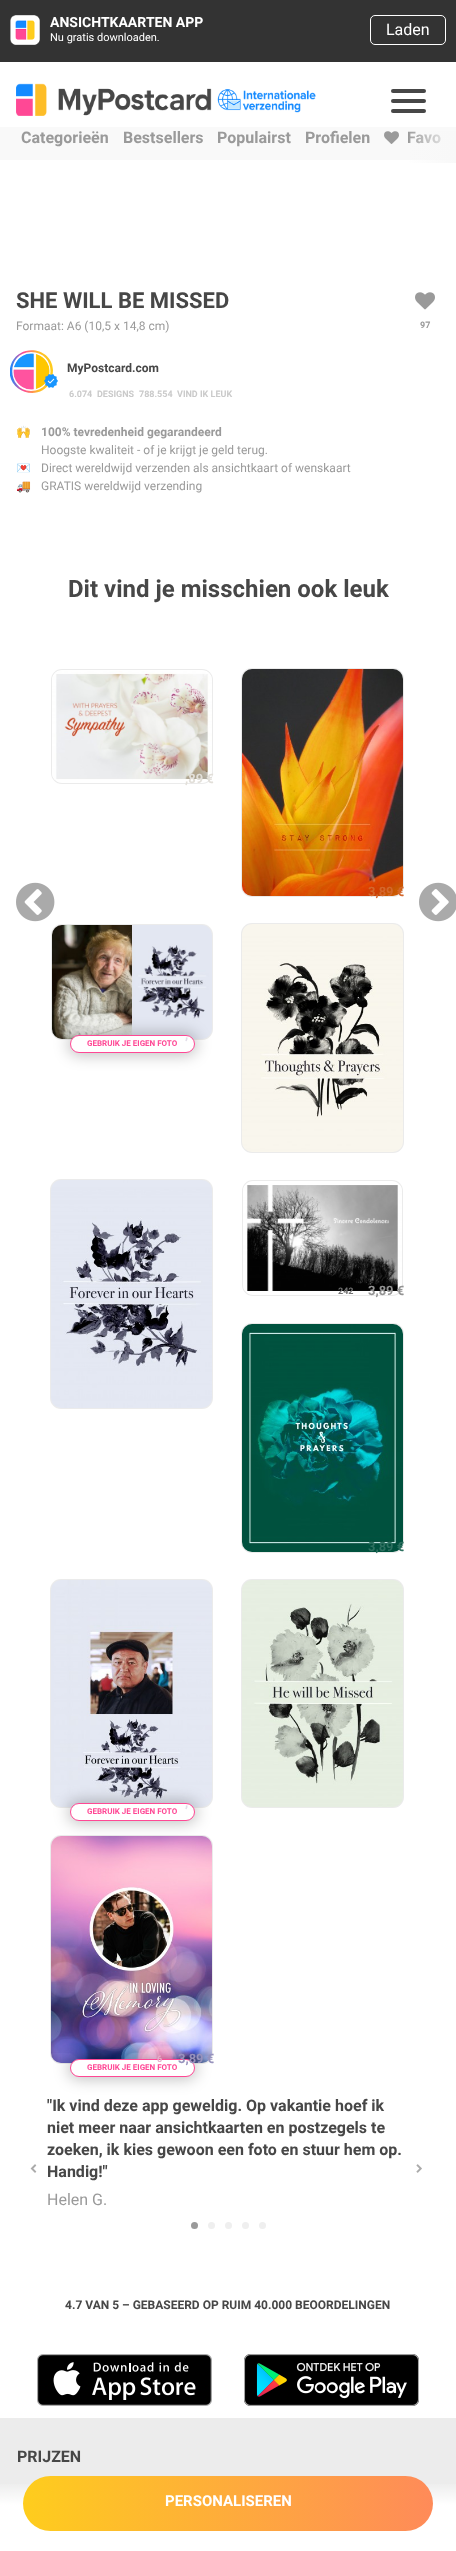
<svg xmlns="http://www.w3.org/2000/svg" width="456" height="2551">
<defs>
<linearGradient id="g1" gradientUnits="userSpaceOnUse" x1="406" y1="110" x2="456" y2="110"><stop offset="0" stop-color="#f8f8f8" stop-opacity="0"/><stop offset="1" stop-color="#f8f8f8"/></linearGradient>
<clipPath id="clip1"><rect x="10" y="350" width="43" height="43"/></clipPath>
<linearGradient id="g2" gradientUnits="userSpaceOnUse" x1="10" y1="372" x2="53" y2="372"><stop offset="0" stop-color="#158aff"/><stop offset="0.31" stop-color="#ff4895"/><stop offset="0.65" stop-color="#febd2b"/><stop offset="1" stop-color="#fecd1d"/></linearGradient>
<linearGradient id="g3" gradientUnits="userSpaceOnUse" x1="228" y1="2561" x2="228" y2="2481"><stop offset="0" stop-color="#fff"/><stop offset="0.7" stop-color="#fff"/><stop offset="1" stop-color="#fff" stop-opacity="0"/></linearGradient>
<linearGradient id="g4" gradientUnits="userSpaceOnUse" x1="23" y1="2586" x2="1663" y2="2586"><stop offset="0" stop-color="#fecd1d"/><stop offset="0.5" stop-color="#ff4895"/><stop offset="1" stop-color="#158aff"/></linearGradient>
<clipPath id="clip2"><path d="M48 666h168v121h-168zm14 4h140c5.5 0 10 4.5 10 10v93c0 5.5-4.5 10-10 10h-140c-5.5 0-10-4.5-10-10v-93c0-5.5 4.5-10 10-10z" clip-rule="evenodd"/></clipPath>
<clipPath id="clip3"><path d="M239 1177h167v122h-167zm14 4h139c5.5 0 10 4.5 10 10v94c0 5.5-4.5 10-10 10h-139c-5.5 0-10-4.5-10-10v-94c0-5.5 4.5-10 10-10z" clip-rule="evenodd"/></clipPath>
</defs>
<rect width="100%" height="100%" fill="#fff"/>
<rect width="456" height="62" fill="#333"/>
<image x="10" y="15" width="30" height="30" href="media/1.png"/>
<text x="50" y="27" style="font-family:Roboto;font-size:14px;font-weight:bold;fill:#fff">ANSICHTKAARTEN APP</text>
<rect x="370.5" y="15.5" width="75" height="29" rx="4.5" fill="none" stroke="#fff"/>
<text x="386" y="35" style="font-family:Roboto;font-size:16px;fill:#fff">Laden</text>
<text x="50" y="41" style="font-family:Roboto;font-size:11px;fill:#fff">Nu gratis downloaden.</text>
<image x="16" y="83" width="300" height="33" href="media/2.png"/>
<rect x="391" y="99" width="35" height="4" rx="2" fill="#474747"/>
<rect x="391" y="89" width="35" height="4" rx="2" fill="#474747"/>
<rect x="391" y="109" width="35" height="4" rx="2" fill="#474747"/>
<rect y="127" width="456" height="33" fill="#f9f9f9"/>
<text x="21" y="143" style="font-family:Roboto;font-size:16px;font-weight:bold;fill:#9a9a9a">Categorieën</text>
<text x="123" y="143" style="font-family:Roboto;font-size:16px;font-weight:bold;fill:#9a9a9a">Bestsellers</text>
<text x="217" y="143" style="font-family:Roboto;font-size:16px;font-weight:bold;fill:#9a9a9a">Populairst</text>
<text x="305" y="143" style="font-family:Roboto;font-size:16px;font-weight:bold;fill:#9a9a9a">Profielen</text>
<image x="384" y="131" width="15" height="13" href="media/3.png"/>
<text x="407" y="143" style="font-family:Roboto;font-size:16px;font-weight:bold;fill:#9a9a9a">Favo</text>
<rect x="409" y="131" width="47" height="32" fill="url(#g1)"/>
<text x="16" y="308" style="font-family:Roboto;font-size:22px;font-weight:bold;fill:#474747">SHE WILL BE MISSED</text>
<text x="16" y="330" style="font-family:Roboto;font-size:12px;fill:#9a9a9a">Formaat: A6 (10,5 x 14,8 cm)</text>
<image x="415" y="292" width="20" height="18" href="media/4.png"/>
<text x="420" y="328" style="font-family:Roboto;font-size:9px;font-weight:bold;fill:#9a9a9a">97</text>
<g clip-path="url(#clip1)">
<path d="M12 362c10-19 40-14 41 8c0 4-1 8-2 11c-13 25-51 7-39-19zm19-10c-25 0-25 38 0 39c26-1 26-39 0-39z" fill="url(#g2)" fill-rule="evenodd"/>
</g>
<image x="13" y="353" width="37" height="37" href="media/5.png"/>
<text x="67" y="372" style="font-family:Roboto;font-size:12px;font-weight:bold;fill:#474747">MyPostcard.com</text>
<text x="69" y="397" style="font-family:Roboto;font-size:9px;font-weight:bold;fill:#cacaca">6.074</text>
<text x="97" y="397" style="font-family:Roboto;font-size:9px;font-weight:bold;fill:#cacaca">DESIGNS</text>
<text x="139" y="397" style="font-family:Roboto;font-size:9px;font-weight:bold;fill:#cacaca">788.554</text>
<text x="177" y="397" style="font-family:Roboto;font-size:9px;font-weight:bold;fill:#cacaca">VIND IK LEUK</text>
<image x="44" y="374" width="14" height="14" href="media/6.png"/>
<rect y="2418" width="456" height="87" fill="#ececec"/>
<rect y="2484" width="456" height="21" fill="url(#g3)"/>
<rect x="23" y="2476" width="410" height="55" rx="27.5" fill="url(#g4)"/>
<text x="165" y="2506" style="font-family:Roboto;font-size:15px;font-weight:bold;fill:#fff">PERSONALISEREN</text>
<text x="16" y="436" style="font-family:Noto Color Emoji;font-size:12px;fill:#9a9a9a">🙌</text>
<text x="41" y="436" style="font-family:Roboto;font-size:12px;font-weight:bold;fill:#9a9a9a">100% tevredenheid gegarandeerd</text>
<text x="41" y="454" style="font-family:Roboto;font-size:12px;fill:#9a9a9a">Hoogste kwaliteit - of je krijgt je geld terug.</text>
<text x="16" y="472" style="font-family:Noto Color Emoji;font-size:12px;fill:#9a9a9a">💌</text>
<text x="41" y="472" style="font-family:Roboto;font-size:12px;fill:#9a9a9a">Direct wereldwijd verzenden als ansichtkaart of wenskaart</text>
<text x="16" y="490" style="font-family:Noto Color Emoji;font-size:12px;fill:#9a9a9a">🚚</text>
<text x="41" y="490" style="font-family:Roboto;font-size:12px;fill:#9a9a9a">GRATIS wereldwijd verzending</text>
<text x="68" y="597" style="font-family:Roboto;font-size:24px;font-weight:bold;fill:#474747">Dit vind je misschien ook leuk</text>
<image x="16" y="882" width="39" height="40" href="media/7.png"/>
<g clip-path="url(#clip2)">
<rect x="51" y="669" width="162" height="115" rx="11" fill="#9a9a9a33" filter="blur(0.5px)"/>
</g>
<image x="52" y="671" width="160" height="109" href="media/8.png"/>
<text x="185" y="783" style="font-family:Roboto;font-size:13px;font-weight:bold;fill:#e2dfd9">,89 €</text>
<image x="400" y="672" width="1" height="220" href="media/9.png"/>
<rect x="241" y="668" width="163" height="229" rx="11" fill="#9a9a9a33" filter="blur(0.5px)"/>
<image x="242" y="669" width="161" height="227" href="media/10.png"/>
<text x="368" y="896" style="font-family:Roboto;font-size:13px;font-weight:bold;fill:#d4672b">3,89 €</text>
<rect x="51" y="924" width="162" height="116" rx="11" fill="#9a9a9a33" filter="blur(0.5px)"/>
<image x="52" y="925" width="160" height="114" href="media/11.png"/>
<rect x="68" y="1033" width="129" height="22" rx="11" fill="#00000040" filter="blur(7.5px)"/>
<rect x="70.5" y="1035.5" width="124" height="17" rx="8.5" fill="#fff" stroke="#ff4895"/>
<text x="185" y="1039" style="font-family:Roboto;font-size:13px;font-weight:bold;fill:#e3dee8">,</text>
<text x="87" y="1046" style="font-family:Roboto;font-size:8px;font-weight:bold;fill:#ff4895">GEBRUIK JE EIGEN FOTO</text>
<image x="400" y="927" width="1" height="221" href="media/12.png"/>
<rect x="241" y="923" width="163" height="230" rx="11" fill="#9a9a9a33" filter="blur(0.5px)"/>
<image x="242" y="924" width="161" height="228" href="media/13.png"/>
<image x="209" y="1183" width="1" height="221" href="media/12.png"/>
<rect x="50" y="1179" width="163" height="230" rx="11" fill="#9a9a9a33" filter="blur(0.5px)"/>
<image x="51" y="1180" width="161" height="228" href="media/14.png"/>
<g clip-path="url(#clip3)">
<rect x="242" y="1180" width="161" height="116" rx="11" fill="#9a9a9a33" filter="blur(0.5px)"/>
</g>
<image x="243" y="1185" width="159" height="106" href="media/15.png"/>
<text x="338" y="1294" style="font-family:Roboto;font-size:9px;font-weight:bold;fill:#737373">242</text>
<text x="368" y="1295" style="font-family:Roboto;font-size:13px;font-weight:bold;fill:#939393">3,89 €</text>
<image x="400" y="1327" width="1" height="221" href="media/12.png"/>
<rect x="241" y="1323" width="163" height="230" rx="11" fill="#9a9a9a33" filter="blur(0.5px)"/>
<image x="242" y="1324" width="161" height="228" href="media/16.png"/>
<text x="368" y="1551" style="font-family:Roboto;font-size:13px;font-weight:bold;fill:#2d7060">3,89 €</text>
<image x="209" y="1583" width="1" height="220" href="media/9.png"/>
<rect x="50" y="1579" width="163" height="229" rx="11" fill="#9a9a9a33" filter="blur(0.5px)"/>
<image x="51" y="1580" width="161" height="227" href="media/17.png"/>
<rect x="68" y="1801" width="129" height="22" rx="11" fill="#00000040" filter="blur(7.5px)"/>
<rect x="70.5" y="1803.5" width="124" height="17" rx="8.5" fill="#fff" stroke="#ff4895"/>
<text x="185" y="1807" style="font-family:Roboto;font-size:13px;font-weight:bold;fill:#e3dee8">,</text>
<text x="87" y="1814" style="font-family:Roboto;font-size:8px;font-weight:bold;fill:#ff4895">GEBRUIK JE EIGEN FOTO</text>
<image x="400" y="1583" width="1" height="220" href="media/9.png"/>
<rect x="241" y="1579" width="163" height="229" rx="11" fill="#9a9a9a33" filter="blur(0.5px)"/>
<image x="242" y="1580" width="161" height="227" href="media/18.png"/>
<image x="209" y="1839" width="1" height="220" href="media/9.png"/>
<rect x="50" y="1835" width="163" height="229" rx="11" fill="#9a9a9a33" filter="blur(0.5px)"/>
<image x="51" y="1836" width="161" height="227" href="media/19.png"/>
<rect x="68" y="2057" width="129" height="22" rx="11" fill="#00000040" filter="blur(7.5px)"/>
<rect x="70.5" y="2059.5" width="124" height="17" rx="8.5" fill="#fff" stroke="#ff4895"/>
<text x="157" y="2062" style="font-family:Roboto;font-size:9px;font-weight:bold;fill:#e8aecb">6</text>
<text x="178" y="2063" style="font-family:Roboto;font-size:13px;font-weight:bold;fill:#9792bc">3,89 €</text>
<text x="87" y="2070" style="font-family:Roboto;font-size:8px;font-weight:bold;fill:#ff4895">GEBRUIK JE EIGEN FOTO</text>
<image x="419" y="882" width="37" height="40" href="media/20.png"/>
<text x="47" y="2111" style="font-family:Roboto;font-size:16px;font-weight:bold;fill:#474747">"Ik vind deze app geweldig. Op vakantie hoef ik</text>
<text x="47" y="2133" style="font-family:Roboto;font-size:16px;font-weight:bold;fill:#474747">niet meer naar ansichtkaarten en postzegels te</text>
<text x="47" y="2155" style="font-family:Roboto;font-size:16px;font-weight:bold;fill:#474747">zoeken, ik kies gewoon een foto en stuur hem op.</text>
<text x="47" y="2177" style="font-family:Roboto;font-size:16px;font-weight:bold;fill:#474747">Handig!"</text>
<text x="47" y="2205" style="font-family:Roboto;font-size:16px;fill:#9a9a9a">Helen G.</text>
<image x="30" y="2164" width="7" height="9" href="media/21.png"/>
<image x="416" y="2164" width="6" height="9" href="media/22.png"/>
<circle cx="194.5" cy="2225.5" r="3.5" fill="#9a9a9a"/>
<circle cx="211.5" cy="2225.5" r="3.5" fill="#efefef"/>
<circle cx="228.5" cy="2225.5" r="3.5" fill="#efefef"/>
<circle cx="245.5" cy="2225.5" r="3.5" fill="#efefef"/>
<circle cx="262.5" cy="2225.5" r="3.5" fill="#efefef"/>
<text x="65" y="2309" style="font-family:Roboto;font-size:12px;font-weight:bold;fill:#474747">4.7 VAN 5 – GEBASEERD OP RUIM 40.000 BEOORDELINGEN</text>
<image x="37" y="2354" width="175" height="52" href="media/23.png"/>
<image x="244" y="2354" width="175" height="52" href="media/24.png"/>
<text x="17" y="2462" style="font-family:Roboto;font-size:16px;font-weight:bold;fill:#474747">PRIJZEN</text>
</svg>
